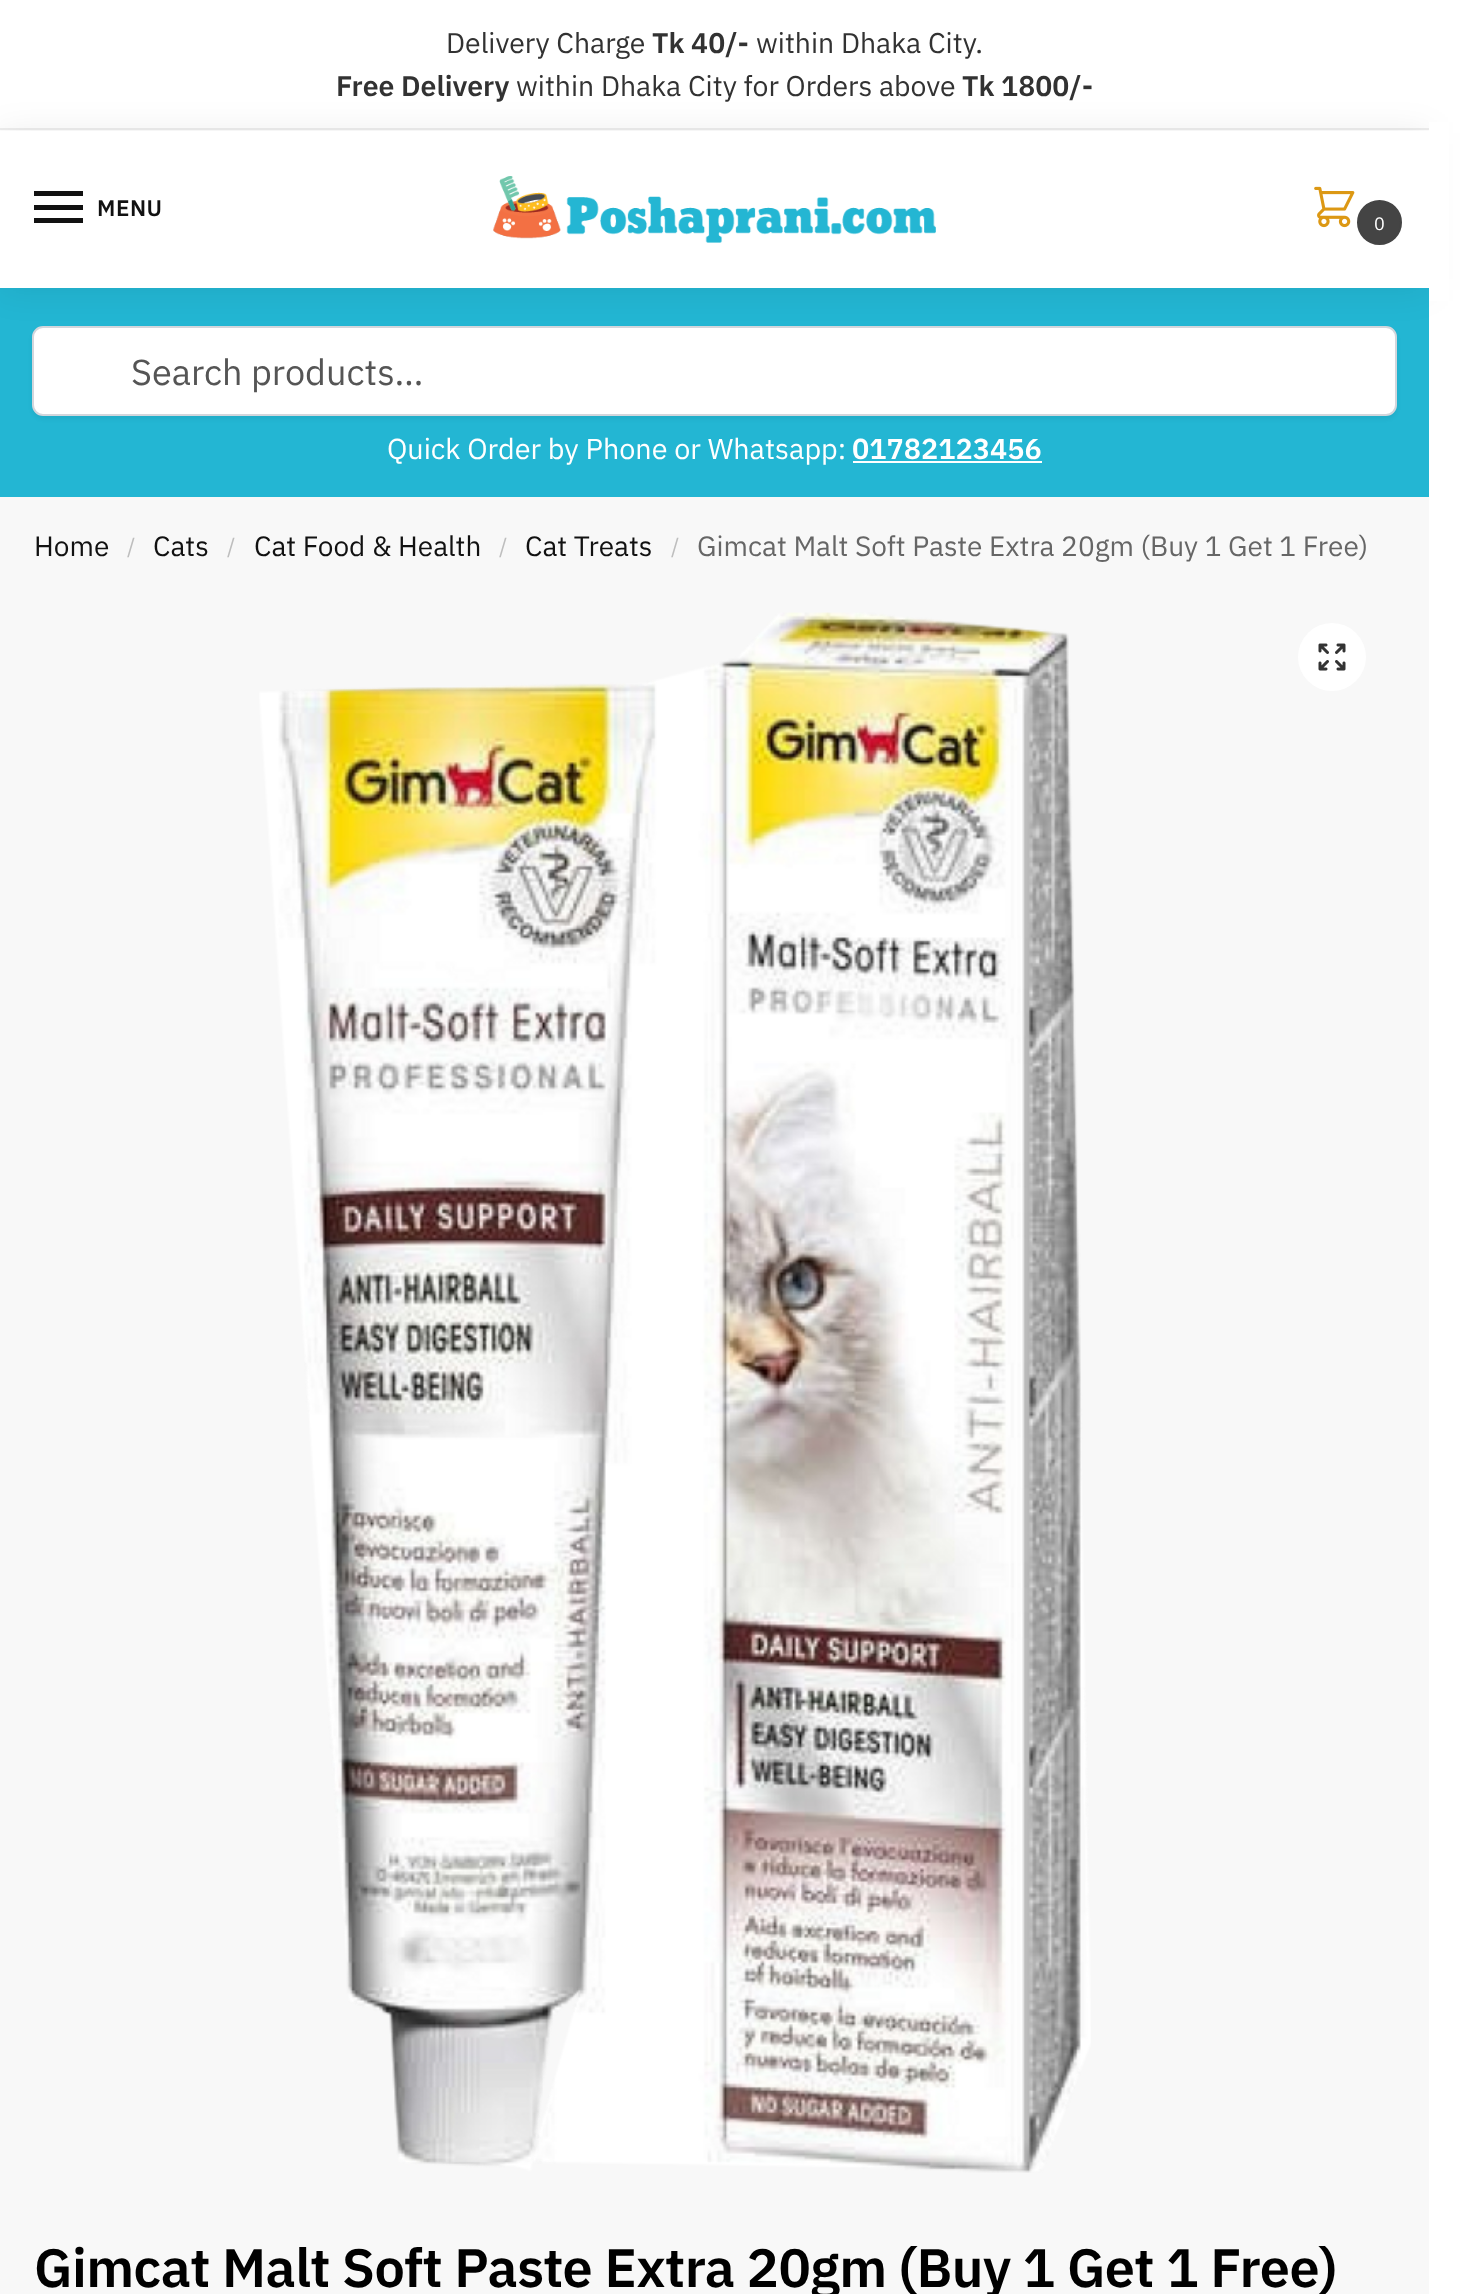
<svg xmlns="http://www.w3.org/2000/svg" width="1461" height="2294">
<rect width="100%" height="100%" fill="#fff"/>
<rect y="128" width="1429" height="2" fill="#eee"/>
<text x="446" y="53" style="font-family:IBM Plex Sans;font-size:28.4px;fill:#323232">Delivery Charge</text>
<text x="652" y="53" style="font-family:IBM Plex Sans;font-size:28.4px;font-weight:600;fill:#323232">Tk 40/-</text>
<text x="756" y="53" style="font-family:IBM Plex Sans;font-size:28.4px;fill:#323232">within Dhaka City.</text>
<text x="336" y="96" style="font-family:IBM Plex Sans;font-size:28.4px;font-weight:600;fill:#323232">Free Delivery</text>
<text x="516" y="96" style="font-family:IBM Plex Sans;font-size:28.4px;fill:#323232">within Dhaka City for Orders above</text>
<text x="962" y="96" style="font-family:IBM Plex Sans;font-size:28.4px;font-weight:600;fill:#323232">Tk 1800/-</text>
<rect y="288" width="1429" height="209" fill="#23b6d3"/>
<rect x="32" y="329" width="1365" height="90" rx="11" fill="#0000000d" filter="blur(2px)"/>
<rect x="33" y="327" width="1363" height="88" rx="10" fill="#fff" stroke="#d2d6dc" stroke-width="2"/>
<rect y="133" width="1429" height="157" fill="#00000014" filter="blur(17px)"/>
<rect y="131" width="1429" height="157" fill="#fff"/>
<rect x="34" y="191" width="49" height="5" fill="#111"/>
<rect x="34" y="205" width="49" height="5" fill="#111"/>
<text x="97" y="216" style="font-family:IBM Plex Sans;font-size:22.5px;font-weight:600;letter-spacing:0.5px;fill:#111">MENU</text>
<rect x="34" y="218" width="49" height="5" fill="#111"/>
<image x="493" y="176" width="443" height="67" href="media/1.png"/>
<image x="1314" y="186" width="41" height="42" href="media/2.png"/>
<circle cx="1379.5" cy="222.5" r="21.5" fill="#444" stroke="#444" stroke-width="2"/>
<text x="1374" y="230" style="font-family:IBM Plex Sans;font-size:18px;fill:#fff">0</text>
<rect x="1429" y="122" width="20" height="179" fill="#fff"/>
<text x="131" y="385" style="font-family:IBM Plex Sans;font-size:36px;fill:#555">Search products…</text>
<text x="387" y="459" style="font-family:IBM Plex Sans;font-size:28.75px;fill:#fff">Quick Order by Phone or Whatsapp:</text>
<text x="852" y="459" style="font-family:IBM Plex Sans;font-size:28.75px;font-weight:600;fill:#fff">01782123456</text>
<rect x="853" y="461" width="189" height="2" fill="#fff"/>
<rect y="497" width="1429" height="1797" fill="#f8f8f8"/>
<text x="34" y="556" style="font-family:IBM Plex Sans;font-size:28px;fill:#111">Home</text>
<text x="127" y="554" style="font-family:IBM Plex Sans;font-size:22px;fill:#bebebe">/</text>
<text x="153" y="556" style="font-family:IBM Plex Sans;font-size:28px;fill:#111">Cats</text>
<text x="227" y="554" style="font-family:IBM Plex Sans;font-size:22px;fill:#bebebe">/</text>
<text x="254" y="556" style="font-family:IBM Plex Sans;font-size:28px;fill:#111">Cat Food &amp; Health</text>
<text x="499" y="554" style="font-family:IBM Plex Sans;font-size:22px;fill:#bebebe">/</text>
<text x="525" y="556" style="font-family:IBM Plex Sans;font-size:28px;fill:#111">Cat Treats</text>
<text x="671" y="554" style="font-family:IBM Plex Sans;font-size:22px;fill:#bebebe">/</text>
<text x="697" y="556" style="font-family:IBM Plex Sans;font-size:28px;fill:#666">Gimcat Malt Soft Paste Extra 20gm (Buy 1 Get 1 Free)</text>
<image x="259" y="612" width="832" height="1561" href="media/3.png"/>
<circle cx="1332" cy="657" r="34" fill="#fff"/>
<image x="1318" y="643" width="28" height="28" href="media/4.png"/>
<text x="34" y="2287" style="font-family:IBM Plex Sans;font-size:54px;font-weight:600;letter-spacing:-0.55px;fill:#000">Gimcat Malt Soft Paste Extra 20gm (Buy 1 Get 1 Free)</text>
</svg>
